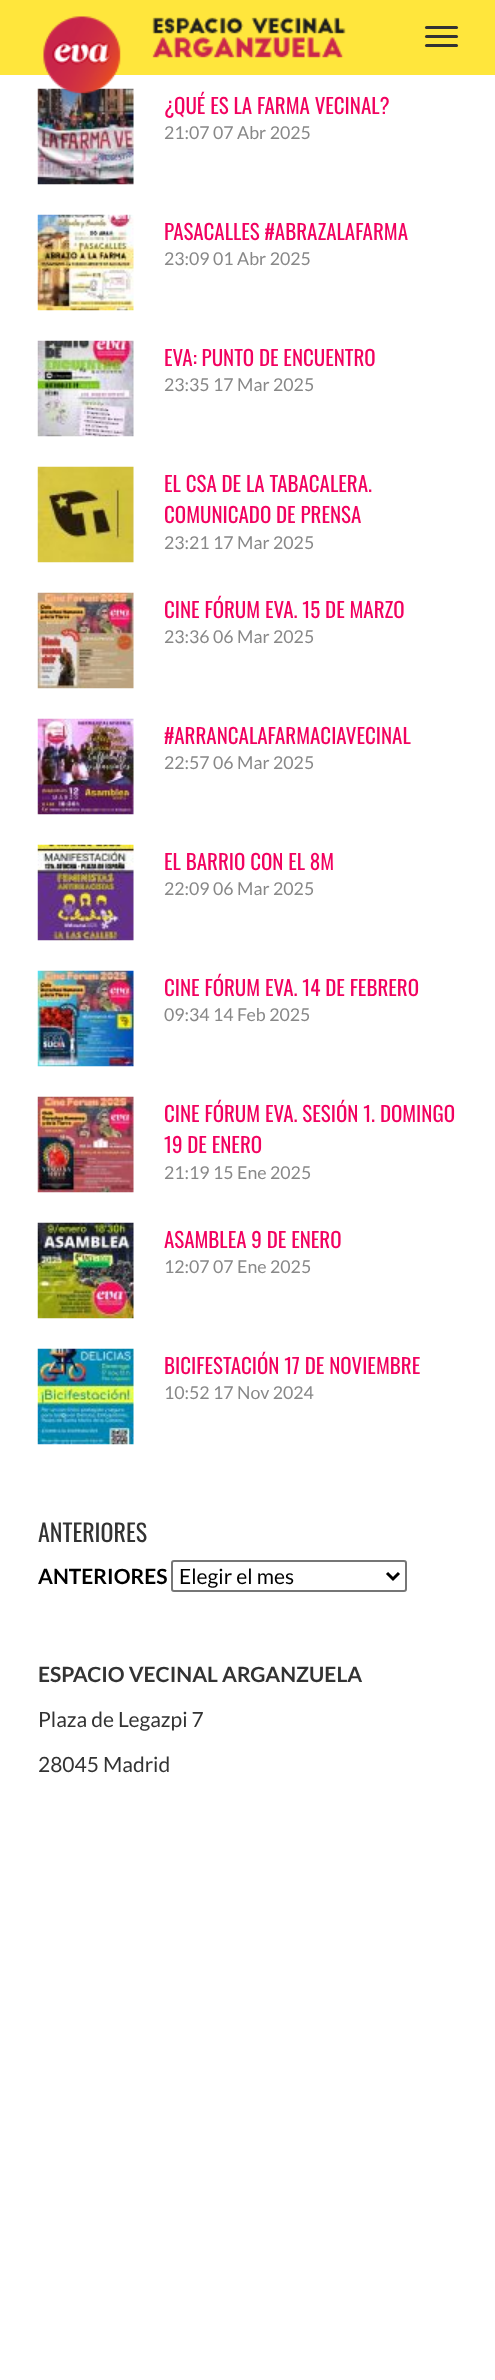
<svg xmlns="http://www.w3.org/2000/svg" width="495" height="2380">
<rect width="100%" height="100%" fill="#fff"/>
<rect width="495" height="75" fill="#ffe63c"/>
<image x="37" y="88" width="97" height="97" href="media/2.png"/>
<text x="164" y="114" style="font-family:Oswald;font-size:21px;fill:#f20260">¿QUÉ ES LA FARMA VECINAL?</text>
<image x="43" y="16" width="303" height="78" href="media/1.png"/>
<rect x="425" y="26" width="33" height="3" rx="1.5" fill="#333"/>
<rect x="425" y="35" width="33" height="3" rx="1.5" fill="#333"/>
<rect x="425" y="44" width="33" height="3" rx="1.5" fill="#333"/>
<text x="164" y="139" style="font-family:Lato;font-size:17.75px;fill:#888">21:07 07 Abr 2025</text>
<image x="37" y="214" width="97" height="97" href="media/3.png"/>
<text x="164" y="240" style="font-family:Oswald;font-size:21px;fill:#f20260">PASACALLES #ABRAZALAFARMA</text>
<text x="164" y="265" style="font-family:Lato;font-size:17.75px;fill:#888">23:09 01 Abr 2025</text>
<image x="37" y="340" width="97" height="97" href="media/4.png"/>
<text x="164" y="366" style="font-family:Oswald;font-size:21px;fill:#f20260">EVA: PUNTO DE ENCUENTRO</text>
<text x="164" y="391" style="font-family:Lato;font-size:17.75px;fill:#888">23:35 17 Mar 2025</text>
<image x="37" y="466" width="97" height="97" href="media/5.png"/>
<text x="164" y="492" style="font-family:Oswald;font-size:21px;fill:#f20260">EL CSA DE LA TABACALERA.</text>
<text x="164" y="523" style="font-family:Oswald;font-size:21px;fill:#f20260">COMUNICADO DE PRENSA</text>
<text x="164" y="549" style="font-family:Lato;font-size:17.75px;fill:#888">23:21 17 Mar 2025</text>
<image x="37" y="592" width="97" height="97" href="media/6.png"/>
<text x="164" y="618" style="font-family:Oswald;font-size:21px;fill:#f20260">CINE FÓRUM EVA. 15 DE MARZO</text>
<text x="164" y="643" style="font-family:Lato;font-size:17.75px;fill:#888">23:36 06 Mar 2025</text>
<image x="37" y="718" width="97" height="97" href="media/7.png"/>
<text x="164" y="744" style="font-family:Oswald;font-size:21px;fill:#f20260">#ARRANCALAFARMACIAVECINAL</text>
<text x="164" y="769" style="font-family:Lato;font-size:17.75px;fill:#888">22:57 06 Mar 2025</text>
<image x="37" y="844" width="97" height="97" href="media/8.png"/>
<text x="164" y="870" style="font-family:Oswald;font-size:21px;fill:#f20260">EL BARRIO CON EL 8M</text>
<text x="164" y="895" style="font-family:Lato;font-size:17.75px;fill:#888">22:09 06 Mar 2025</text>
<image x="37" y="970" width="97" height="97" href="media/9.png"/>
<text x="164" y="996" style="font-family:Oswald;font-size:21px;fill:#f20260">CINE FÓRUM EVA. 14 DE FEBRERO</text>
<text x="164" y="1021" style="font-family:Lato;font-size:17.75px;fill:#888">09:34 14 Feb 2025</text>
<image x="37" y="1096" width="97" height="97" href="media/10.png"/>
<text x="164" y="1122" style="font-family:Oswald;font-size:21px;fill:#f20260">CINE FÓRUM EVA. SESIÓN 1. DOMINGO</text>
<text x="164" y="1153" style="font-family:Oswald;font-size:21px;fill:#f20260">19 DE ENERO</text>
<text x="164" y="1179" style="font-family:Lato;font-size:17.75px;fill:#888">21:19 15 Ene 2025</text>
<image x="37" y="1222" width="97" height="97" href="media/11.png"/>
<text x="164" y="1248" style="font-family:Oswald;font-size:21px;fill:#f20260">ASAMBLEA 9 DE ENERO</text>
<text x="164" y="1273" style="font-family:Lato;font-size:17.75px;fill:#888">12:07 07 Ene 2025</text>
<image x="37" y="1348" width="97" height="97" href="media/12.png"/>
<text x="164" y="1374" style="font-family:Oswald;font-size:21px;fill:#f20260">BICIFESTACIÓN 17 DE NOVIEMBRE</text>
<text x="164" y="1399" style="font-family:Lato;font-size:17.75px;fill:#888">10:52 17 Nov 2024</text>
<text x="38" y="1542" style="font-family:Oswald;font-size:24px;fill:#333">ANTERIORES</text>
<text x="38" y="1584" style="font-family:Lato;font-size:21px;font-weight:bold;fill:#000">ANTERIORES</text>
<rect x="172" y="1561" width="234" height="30" rx="2" fill="none" stroke="#767676" stroke-width="2"/>
<path d="M387 1573l6 6l6-6" fill="none" stroke="#000" stroke-width="3"/>
<text x="179" y="1584" style="font-family:Lato;font-size:21px;fill:#000">Elegir el mes</text>
<text x="38" y="1682" style="font-family:Lato;font-size:21px;font-weight:bold;fill:#333">ESPACIO VECINAL ARGANZUELA</text>
<text x="38" y="1727" style="font-family:Lato;font-size:21px;fill:#333">Plaza de Legazpi 7</text>
<text x="38" y="1772" style="font-family:Lato;font-size:21px;fill:#333">28045 Madrid</text>
</svg>
